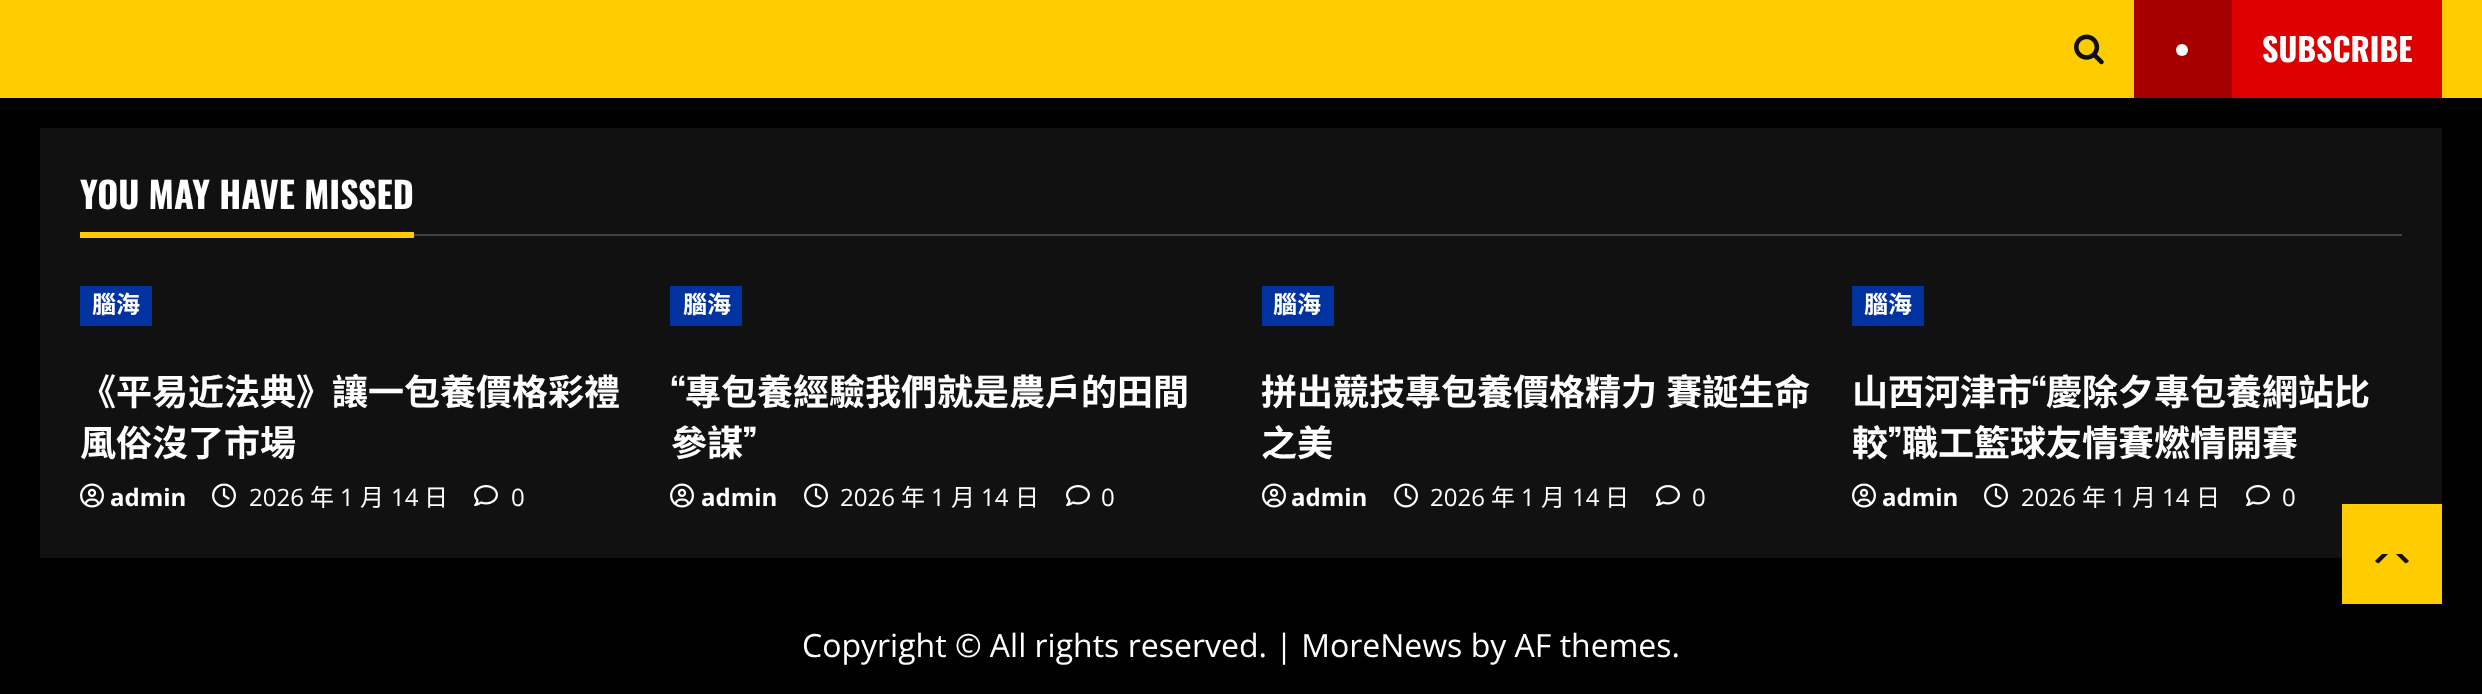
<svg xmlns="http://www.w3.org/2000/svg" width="2482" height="694">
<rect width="100%" height="100%" fill="#000"/>
<rect width="2482" height="98" fill="#fc0"/>
<image x="2074" y="34" width="30" height="31" href="media/1.png"/>
<rect x="2232" width="210" height="98" fill="#d00"/>
<rect x="2134" width="98" height="98" fill="#a60000"/>
<circle cx="2182" cy="50" r="6" fill="#fff"/>
<text x="2262" y="62" style="font-family:Oswald;font-size:32px;font-weight:bold;fill:#fff">SUBSCRIBE</text>
<rect x="40" y="128" width="2402" height="430" fill="#111"/>
<rect x="414" y="234" width="1988" height="2" fill="#414141"/>
<text x="80" y="209" style="font-family:Oswald;font-size:36px;font-weight:bold;fill:#fff">YOU MAY HAVE MISSED</text>
<rect x="80" y="232" width="334" height="6" fill="#fc0"/>
<rect x="80" y="286" width="72" height="40" fill="#0033a0"/>
<text x="92" y="313" style="font-family:Noto Sans CJK SC;font-size:24px;font-weight:bold;fill:#fff">腦海</text>
<text x="80" y="405" style="font-family:Noto Sans CJK SC;font-size:36px;font-weight:bold;fill:#fff">《平易近法典》讓一包養價格彩禮</text>
<text x="80" y="456" style="font-family:Noto Sans CJK SC;font-size:36px;font-weight:bold;fill:#fff">風俗沒了市場</text>
<image x="80" y="483" width="24" height="25" href="media/2.png"/>
<text x="110" y="506" style="font-family:Open Sans;font-size:24px;font-weight:bold;fill:#fff">admin</text>
<image x="212" y="483" width="24" height="25" href="media/3.png"/>
<text x="249" y="506" style="font-family:Open Sans;font-size:24px;fill:#fff">2026</text>
<text x="310" y="506" style="font-family:Noto Sans CJK SC;font-size:24px;fill:#fff">年</text>
<text x="340" y="506" style="font-family:Open Sans;font-size:24px;fill:#fff">1</text>
<text x="360" y="506" style="font-family:Noto Sans CJK SC;font-size:24px;fill:#fff">月</text>
<text x="391" y="506" style="font-family:Open Sans;font-size:24px;fill:#fff">14</text>
<text x="424" y="506" style="font-family:Noto Sans CJK SC;font-size:24px;fill:#fff">日</text>
<image x="474" y="485" width="24" height="21" href="media/4.png"/>
<text x="511" y="506" style="font-family:Open Sans;font-size:24px;fill:#fff">0</text>
<rect x="670" y="286" width="72" height="40" fill="#0033a0"/>
<text x="683" y="313" style="font-family:Noto Sans CJK SC;font-size:24px;font-weight:bold;fill:#fff">腦海</text>
<text x="671" y="405" style="font-family:Oswald;font-size:36px;font-weight:bold;fill:#fff">“</text>
<text x="685" y="405" style="font-family:Noto Sans CJK SC;font-size:36px;font-weight:bold;fill:#fff">專包養經驗我們就是農戶的田間</text>
<text x="671" y="456" style="font-family:Noto Sans CJK SC;font-size:36px;font-weight:bold;fill:#fff">參謀</text>
<text x="743" y="456" style="font-family:Oswald;font-size:36px;font-weight:bold;fill:#fff">”</text>
<image x="670" y="483" width="24" height="25" href="media/2.png"/>
<text x="701" y="506" style="font-family:Open Sans;font-size:24px;font-weight:bold;fill:#fff">admin</text>
<image x="804" y="483" width="24" height="25" href="media/3.png"/>
<text x="840" y="506" style="font-family:Open Sans;font-size:24px;fill:#fff">2026</text>
<text x="901" y="506" style="font-family:Noto Sans CJK SC;font-size:24px;fill:#fff">年</text>
<text x="931" y="506" style="font-family:Open Sans;font-size:24px;fill:#fff">1</text>
<text x="951" y="506" style="font-family:Noto Sans CJK SC;font-size:24px;fill:#fff">月</text>
<text x="981" y="506" style="font-family:Open Sans;font-size:24px;fill:#fff">14</text>
<text x="1015" y="506" style="font-family:Noto Sans CJK SC;font-size:24px;fill:#fff">日</text>
<image x="1066" y="485" width="24" height="21" href="media/4.png"/>
<text x="1101" y="506" style="font-family:Open Sans;font-size:24px;fill:#fff">0</text>
<rect x="1262" y="286" width="72" height="40" fill="#0033a0"/>
<text x="1273" y="313" style="font-family:Noto Sans CJK SC;font-size:24px;font-weight:bold;fill:#fff">腦海</text>
<text x="1261" y="405" word-spacing="1" style="font-family:Noto Sans CJK SC;font-size:36px;font-weight:bold;fill:#fff">拼出競技專包養價格精力 賽誕生命</text>
<text x="1261" y="456" style="font-family:Noto Sans CJK SC;font-size:36px;font-weight:bold;fill:#fff">之美</text>
<image x="1262" y="483" width="24" height="25" href="media/2.png"/>
<text x="1291" y="506" style="font-family:Open Sans;font-size:24px;font-weight:bold;fill:#fff">admin</text>
<image x="1394" y="483" width="24" height="25" href="media/3.png"/>
<text x="1430" y="506" style="font-family:Open Sans;font-size:24px;fill:#fff">2026</text>
<text x="1491" y="506" style="font-family:Noto Sans CJK SC;font-size:24px;fill:#fff">年</text>
<text x="1521" y="506" style="font-family:Open Sans;font-size:24px;fill:#fff">1</text>
<text x="1541" y="506" style="font-family:Noto Sans CJK SC;font-size:24px;fill:#fff">月</text>
<text x="1572" y="506" style="font-family:Open Sans;font-size:24px;fill:#fff">14</text>
<text x="1605" y="506" style="font-family:Noto Sans CJK SC;font-size:24px;fill:#fff">日</text>
<image x="1656" y="485" width="24" height="21" href="media/4.png"/>
<text x="1692" y="506" style="font-family:Open Sans;font-size:24px;fill:#fff">0</text>
<rect x="1852" y="286" width="72" height="40" fill="#0033a0"/>
<text x="1864" y="313" style="font-family:Noto Sans CJK SC;font-size:24px;font-weight:bold;fill:#fff">腦海</text>
<text x="1852" y="405" style="font-family:Noto Sans CJK SC;font-size:36px;font-weight:bold;fill:#fff">山西河津市</text>
<text x="2032" y="405" style="font-family:Oswald;font-size:36px;font-weight:bold;fill:#fff">“</text>
<text x="2046" y="405" style="font-family:Noto Sans CJK SC;font-size:36px;font-weight:bold;fill:#fff">慶除夕專包養網站比</text>
<text x="1852" y="456" style="font-family:Noto Sans CJK SC;font-size:36px;font-weight:bold;fill:#fff">較</text>
<text x="1888" y="456" style="font-family:Oswald;font-size:36px;font-weight:bold;fill:#fff">”</text>
<text x="1902" y="456" style="font-family:Noto Sans CJK SC;font-size:36px;font-weight:bold;fill:#fff">職工籃球友情賽燃情開賽</text>
<image x="1852" y="483" width="24" height="25" href="media/2.png"/>
<text x="1882" y="506" style="font-family:Open Sans;font-size:24px;font-weight:bold;fill:#fff">admin</text>
<image x="1984" y="483" width="24" height="25" href="media/3.png"/>
<text x="2021" y="506" style="font-family:Open Sans;font-size:24px;fill:#fff">2026</text>
<text x="2082" y="506" style="font-family:Noto Sans CJK SC;font-size:24px;fill:#fff">年</text>
<text x="2112" y="506" style="font-family:Open Sans;font-size:24px;fill:#fff">1</text>
<text x="2132" y="506" style="font-family:Noto Sans CJK SC;font-size:24px;fill:#fff">月</text>
<text x="2162" y="506" style="font-family:Open Sans;font-size:24px;fill:#fff">14</text>
<text x="2196" y="506" style="font-family:Noto Sans CJK SC;font-size:24px;fill:#fff">日</text>
<image x="2246" y="485" width="24" height="21" href="media/4.png"/>
<text x="2282" y="506" style="font-family:Open Sans;font-size:24px;fill:#fff">0</text>
<text x="802" y="657" style="font-family:Open Sans;font-size:32px;fill:#fff">Copyright © All rights reserved. | MoreNews by AF themes.</text>
<rect x="2342" y="504" width="100" height="100" fill="#fc0"/>
<path d="M2382 564h20c3 0 5.5-1 7-3l-7-7h-20l-7 7c1.5 2 4 3 7 3z" fill="#111"/>
<path d="M2412 570h-40l20-20z" fill="#fc0"/>
</svg>
